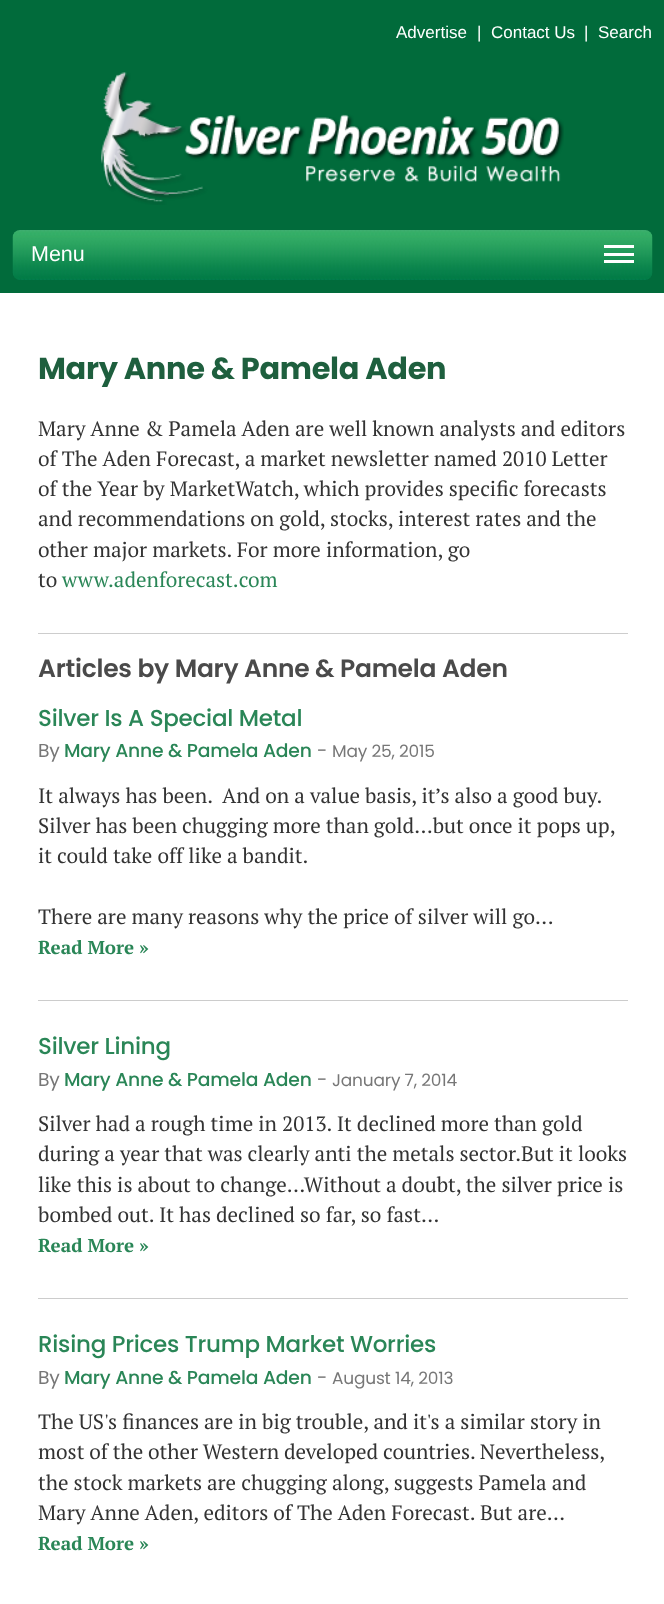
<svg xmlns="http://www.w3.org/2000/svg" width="664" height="1604">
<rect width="100%" height="100%" fill="#fff"/>
<image x="0" y="0" width="664" height="293" href="media/1.png"/>
<text x="396" y="38" style="font-family:Liberation Sans;font-size:17px;fill:#fff">Advertise</text>
<text x="477" y="38" style="font-family:Liberation Sans;font-size:17px;fill:#fff">|</text>
<text x="491" y="38" style="font-family:Liberation Sans;font-size:17px;fill:#fff">Contact Us</text>
<text x="584" y="38" style="font-family:Liberation Sans;font-size:17px;fill:#fff">|</text>
<text x="598" y="38" style="font-family:Liberation Sans;font-size:17px;fill:#fff">Search</text>
<image x="101" y="72" width="463" height="133" href="media/2.png"/>
<image x="12" y="230" width="641" height="50" href="media/3.png"/>
<text x="31" y="261" style="font-family:Liberation Sans;font-size:21.5px;fill:#fff">Menu</text>
<rect x="604" y="245" width="30" height="3" fill="#fff"/>
<rect x="604" y="253" width="30" height="3" fill="#fff"/>
<rect x="604" y="260" width="30" height="3" fill="#fff"/>
<text x="38" y="379" style="font-family:Poppins;font-size:30.4px;font-weight:bold;letter-spacing:-0.3px;fill:#1e5f3e">Mary Anne &amp; Pamela Aden</text>
<text x="38" y="436" style="font-family:PT Serif;font-size:20.9px;fill:#333">Mary Anne &amp; Pamela Aden are well known analysts and editors</text>
<text x="38" y="466" style="font-family:PT Serif;font-size:20.9px;fill:#333">of The Aden Forecast, a market newsletter named 2010 Letter</text>
<text x="38" y="496" style="font-family:PT Serif;font-size:20.9px;fill:#333">of the Year by MarketWatch, which provides specific forecasts</text>
<text x="38" y="526" style="font-family:PT Serif;font-size:20.9px;fill:#333">and recommendations on gold, stocks, interest rates and the</text>
<text x="38" y="557" style="font-family:PT Serif;font-size:20.9px;fill:#333">other major markets. For more information, go</text>
<text x="38" y="587" style="font-family:PT Serif;font-size:20.9px;fill:#333">to</text>
<text x="62" y="587" style="font-family:PT Serif;font-size:20.9px;fill:#2a8657">www.adenforecast.com</text>
<rect x="38" y="633" width="590" height="1" fill="#cdcdcd"/>
<text x="38" y="677" style="font-family:Poppins;font-size:25px;font-weight:600;letter-spacing:-0.25px;fill:#4a4a4a">Articles by Mary Anne &amp; Pamela Aden</text>
<rect x="38" y="1000" width="590" height="1" fill="#ccc"/>
<text x="38" y="726" style="font-family:Poppins;font-size:23px;font-weight:500;letter-spacing:-0.25px;fill:#2a8657">Silver Is A Special Metal</text>
<text x="38" y="757" style="font-family:Poppins;font-size:18.75px;letter-spacing:-0.2px;fill:#777">By</text>
<text x="64" y="757" style="font-family:Poppins;font-size:18.75px;font-weight:500;letter-spacing:-0.2px;fill:#2a8657">Mary Anne &amp; Pamela Aden</text>
<text x="317" y="757" style="font-family:Poppins;font-size:18.75px;letter-spacing:-0.2px;fill:#777">-</text>
<text x="332" y="757" style="font-family:Poppins;font-size:17px;letter-spacing:-0.2px;fill:#777">May 25, 2015</text>
<text x="38" y="803" style="font-family:PT Serif;font-size:20.9px;fill:#333" xml:space="preserve">It always has been.  And on a value basis, it’s also a good buy.</text>
<text x="38" y="833" word-spacing="-0.1" style="font-family:PT Serif;font-size:20.9px;fill:#333">Silver has been chugging more than gold…but once it pops up,</text>
<text x="38" y="863" style="font-family:PT Serif;font-size:20.9px;fill:#333">it could take off like a bandit.</text>
<text x="38" y="924" style="font-family:PT Serif;font-size:20.9px;fill:#333">There are many reasons why the price of silver will go...</text>
<text x="38" y="954" style="font-family:PT Serif;font-size:18.75px;font-weight:bold;fill:#2a8657">Read More »</text>
<rect x="38" y="1298" width="590" height="1" fill="#ccc"/>
<text x="38" y="1054" style="font-family:Poppins;font-size:23px;font-weight:500;letter-spacing:-0.25px;fill:#2a8657">Silver Lining</text>
<text x="38" y="1086" style="font-family:Poppins;font-size:18.75px;letter-spacing:-0.2px;fill:#777">By</text>
<text x="64" y="1086" style="font-family:Poppins;font-size:18.75px;font-weight:500;letter-spacing:-0.2px;fill:#2a8657">Mary Anne &amp; Pamela Aden</text>
<text x="317" y="1086" style="font-family:Poppins;font-size:18.75px;letter-spacing:-0.2px;fill:#777">-</text>
<text x="332" y="1086" style="font-family:Poppins;font-size:17px;letter-spacing:-0.2px;fill:#777">January 7, 2014</text>
<text x="38" y="1131" style="font-family:PT Serif;font-size:20.9px;fill:#333">Silver had a rough time in 2013. It declined more than gold</text>
<text x="38" y="1161" style="font-family:PT Serif;font-size:20.9px;fill:#333">during a year that was clearly anti the metals sector.But it looks</text>
<text x="38" y="1192" style="font-family:PT Serif;font-size:20.9px;fill:#333">like this is about to change…Without a doubt, the silver price is</text>
<text x="38" y="1222" style="font-family:PT Serif;font-size:20.9px;fill:#333">bombed out. It has declined so far, so fast...</text>
<text x="38" y="1252" style="font-family:PT Serif;font-size:18.75px;font-weight:bold;fill:#2a8657">Read More »</text>
<text x="38" y="1352" style="font-family:Poppins;font-size:23px;font-weight:500;letter-spacing:-0.25px;fill:#2a8657">Rising Prices Trump Market Worries</text>
<text x="38" y="1384" style="font-family:Poppins;font-size:18.75px;letter-spacing:-0.2px;fill:#777">By</text>
<text x="64" y="1384" style="font-family:Poppins;font-size:18.75px;font-weight:500;letter-spacing:-0.2px;fill:#2a8657">Mary Anne &amp; Pamela Aden</text>
<text x="317" y="1384" style="font-family:Poppins;font-size:18.75px;letter-spacing:-0.2px;fill:#777">-</text>
<text x="332" y="1384" style="font-family:Poppins;font-size:17px;letter-spacing:-0.2px;fill:#777">August 14, 2013</text>
<text x="38" y="1429" style="font-family:PT Serif;font-size:20.9px;fill:#333">The US's finances are in big trouble, and it's a similar story in</text>
<text x="38" y="1459" word-spacing="-0.25" style="font-family:PT Serif;font-size:20.9px;fill:#333">most of the other Western developed countries. Nevertheless,</text>
<text x="38" y="1490" style="font-family:PT Serif;font-size:20.9px;fill:#333">the stock markets are chugging along, suggests Pamela and</text>
<text x="38" y="1520" style="font-family:PT Serif;font-size:20.9px;fill:#333">Mary Anne Aden, editors of The Aden Forecast. But are...</text>
<text x="38" y="1550" style="font-family:PT Serif;font-size:18.75px;font-weight:bold;fill:#2a8657">Read More »</text>
</svg>
